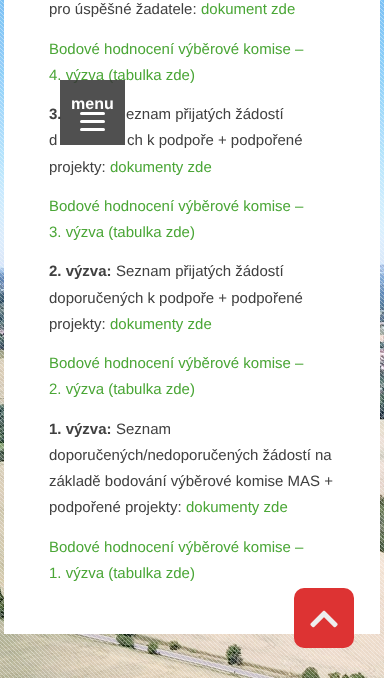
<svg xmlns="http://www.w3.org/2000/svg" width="384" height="678">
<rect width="100%" height="100%" fill="#fff"/>
<image x="0" y="0" width="384" height="678" href="media/1.png"/>
<image x="0" y="0" width="384" height="678" href="media/2.png"/>
<rect x="4" width="376" height="634" fill="#fff"/>
<text x="49" y="14" style="font-family:Liberation Sans;font-size:15px;fill:#404040">pro úspěšné žadatele:</text>
<text x="201" y="14" style="font-family:Liberation Sans;font-size:15px;fill:#4aa636">dokument zde</text>
<text x="49" y="54" style="font-family:Liberation Sans;font-size:15px;fill:#4aa636">Bodové hodnocení výběrové komise –</text>
<text x="49" y="80" style="font-family:Liberation Sans;font-size:15px;fill:#4aa636">4. výzva (tabulka zde)</text>
<text x="49" y="119" style="font-family:Liberation Sans;font-size:15px;font-weight:bold;fill:#404040">3.</text>
<text x="126" y="119" style="font-family:Liberation Sans;font-size:15px;fill:#404040">eznam přijatých žádostí</text>
<text x="49" y="145" style="font-family:Liberation Sans;font-size:15px;fill:#404040">d</text>
<text x="127" y="145" style="font-family:Liberation Sans;font-size:15px;fill:#404040">ch k podpoře + podpořené</text>
<text x="49" y="172" style="font-family:Liberation Sans;font-size:15px;fill:#404040">projekty:</text>
<text x="110" y="172" style="font-family:Liberation Sans;font-size:15px;fill:#4aa636">dokumenty zde</text>
<text x="49" y="211" style="font-family:Liberation Sans;font-size:15px;fill:#4aa636">Bodové hodnocení výběrové komise –</text>
<text x="49" y="237" style="font-family:Liberation Sans;font-size:15px;fill:#4aa636">3. výzva (tabulka zde)</text>
<text x="49" y="276" style="font-family:Liberation Sans;font-size:15px;font-weight:bold;fill:#404040">2. výzva:</text>
<text x="116" y="276" style="font-family:Liberation Sans;font-size:15px;fill:#404040">Seznam přijatých žádostí</text>
<text x="49" y="303" style="font-family:Liberation Sans;font-size:15px;fill:#404040">doporučených k podpoře + podpořené</text>
<text x="49" y="329" style="font-family:Liberation Sans;font-size:15px;fill:#404040">projekty:</text>
<text x="110" y="329" style="font-family:Liberation Sans;font-size:15px;fill:#4aa636">dokumenty zde</text>
<text x="49" y="368" style="font-family:Liberation Sans;font-size:15px;fill:#4aa636">Bodové hodnocení výběrové komise –</text>
<text x="49" y="394" style="font-family:Liberation Sans;font-size:15px;fill:#4aa636">2. výzva (tabulka zde)</text>
<text x="49" y="434" style="font-family:Liberation Sans;font-size:15px;font-weight:bold;fill:#404040">1. výzva:</text>
<text x="116" y="434" style="font-family:Liberation Sans;font-size:15px;fill:#404040">Seznam</text>
<text x="49" y="460" style="font-family:Liberation Sans;font-size:15px;fill:#404040">doporučených/nedoporučených žádostí na</text>
<text x="49" y="486" style="font-family:Liberation Sans;font-size:15px;fill:#404040">základě bodování výběrové komise MAS +</text>
<text x="49" y="512" style="font-family:Liberation Sans;font-size:15px;fill:#404040">podpořené projekty:</text>
<text x="186" y="512" style="font-family:Liberation Sans;font-size:15px;fill:#4aa636">dokumenty zde</text>
<text x="49" y="552" style="font-family:Liberation Sans;font-size:15px;fill:#4aa636">Bodové hodnocení výběrové komise –</text>
<text x="49" y="578" style="font-family:Liberation Sans;font-size:15px;fill:#4aa636">1. výzva (tabulka zde)</text>
<rect x="60" y="80" width="65" height="65" fill="#363636de"/>
<text x="71" y="109" style="font-family:Liberation Sans;font-size:16px;font-weight:bold;fill:#fff">menu</text>
<rect x="80" y="128" width="25" height="3" rx="1.5" fill="#fff"/>
<rect x="80" y="112" width="25" height="3" rx="1.5" fill="#fff"/>
<rect x="80" y="120" width="25" height="3" rx="1.5" fill="#fff"/>
<rect x="294" y="588" width="60" height="60" rx="10" fill="#d33"/>
<image x="310" y="610" width="28" height="18" href="media/3.png"/>
</svg>
